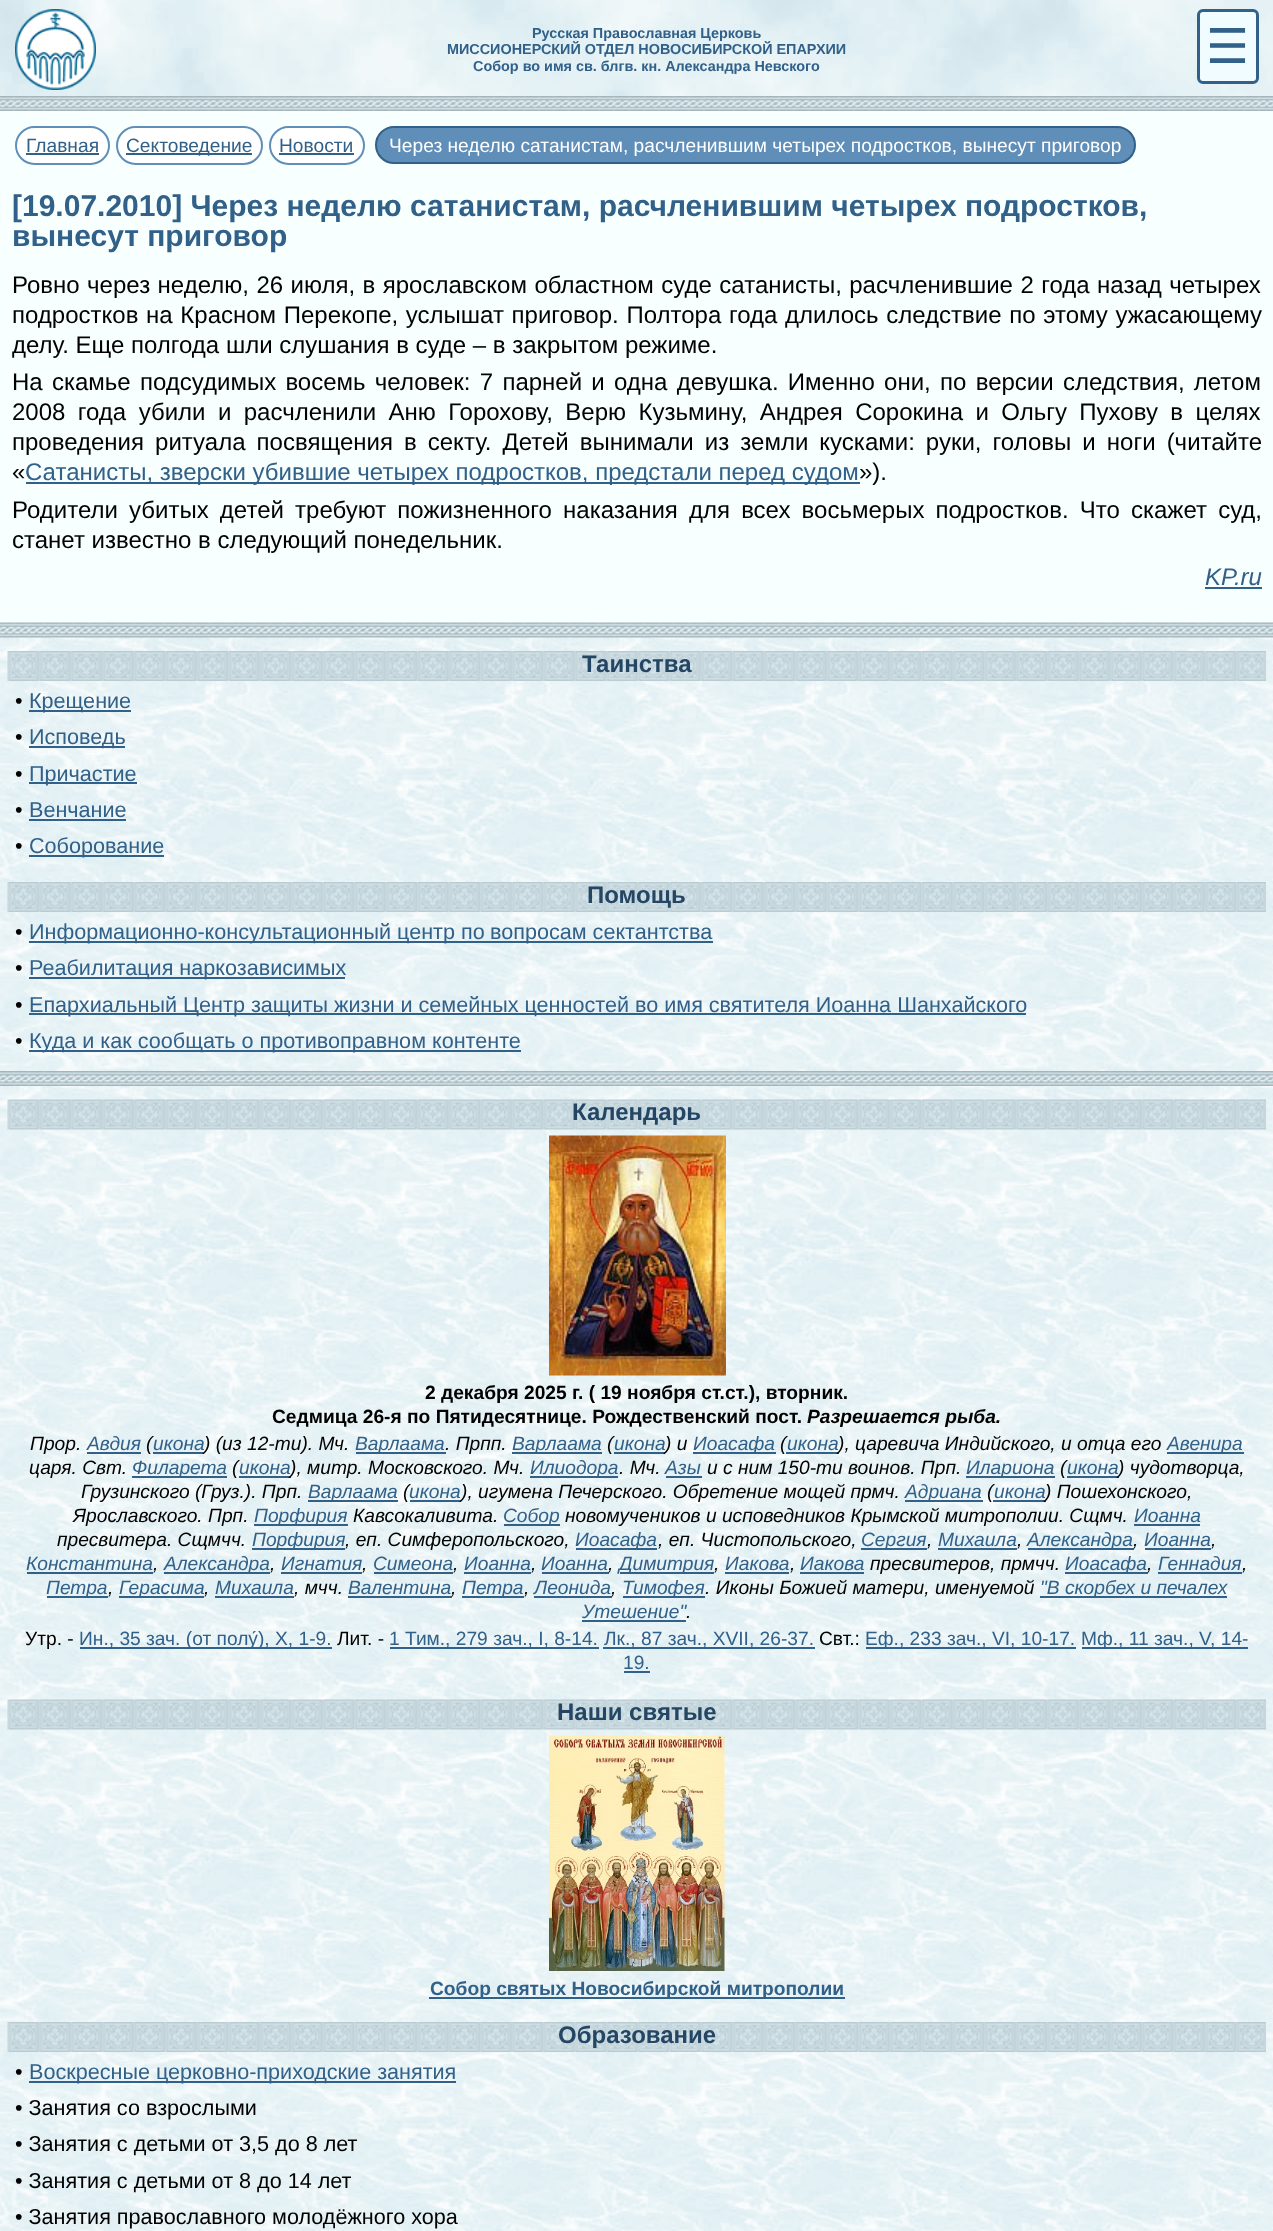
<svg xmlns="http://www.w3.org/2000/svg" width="1273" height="2231">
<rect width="100%" height="100%" fill="#fff"/>
<image x="0" y="0" width="1273" height="111" href="media/1.png"/>
<image x="15" y="9" width="81" height="81" href="media/2.png"/>
<text x="532" y="38" style="font-family:Liberation Sans;font-size:14.4px;font-weight:bold;fill:#316088">Русская Православная Церковь</text>
<text x="447" y="54" style="font-family:Liberation Sans;font-size:14.4px;font-weight:bold;fill:#316088">МИССИОНЕРСКИЙ ОТДЕЛ НОВОСИБИРСКОЙ ЕПАРХИИ</text>
<text x="473" y="71" style="font-family:Liberation Sans;font-size:14.4px;font-weight:bold;fill:#316088">Собор во имя св. блгв. кн. Александра Невского</text>
<rect x="1198.5" y="10.5" width="59" height="72" rx="4.5" fill="#f0fcff" stroke="#316088" stroke-width="3"/>
<text x="1206" y="63" style="font-family:DejaVu Sans;font-size:48px;fill:#316088">☰</text>
<rect y="111" width="1273" height="512" fill="#f8ffff"/>
<rect x="16" y="127" width="93" height="37" rx="18.5" fill="#fff" stroke="#5f8eb8" stroke-width="2"/>
<text x="26" y="152" style="font-family:Liberation Sans;font-size:19.2px;fill:#316088">Главная</text>
<rect x="26" y="153" width="73" height="2" fill="#316088"/>
<rect x="117" y="127" width="145" height="37" rx="18.5" fill="#fff" stroke="#5f8eb8" stroke-width="2"/>
<rect x="126" y="153" width="126" height="2" fill="#316088"/>
<text x="126" y="152" style="font-family:Liberation Sans;font-size:19.2px;fill:#316088">Сектоведение</text>
<rect x="270" y="127" width="94" height="37" rx="18.5" fill="#fff" stroke="#5f8eb8" stroke-width="2"/>
<text x="279" y="152" style="font-family:Liberation Sans;font-size:19.2px;fill:#316088">Новости</text>
<rect x="279" y="153" width="75" height="2" fill="#316088"/>
<rect x="376" y="127" width="759" height="36" rx="18" fill="#5f8eb8" stroke="#316088" stroke-width="2"/>
<text x="389" y="152" style="font-family:Liberation Sans;font-size:19.2px;fill:#fff">Через неделю сатанистам, расчленившим четырех подростков, вынесут приговор</text>
<text x="12" y="216" style="font-family:Liberation Sans;font-size:30px;font-weight:bold;fill:#316088">[19.07.2010] Через неделю сатанистам, расчленившим четырех подростков,</text>
<text x="12" y="246" style="font-family:Liberation Sans;font-size:30px;font-weight:bold;fill:#316088">вынесут приговор</text>
<text x="12" y="293" word-spacing="0.8" style="font-family:Liberation Sans;font-size:24px;fill:#000">Ровно через неделю, 26 июля, в ярославском областном суде сатанисты, расчленившие 2 года назад четырех</text>
<text x="12" y="323" word-spacing="1" style="font-family:Liberation Sans;font-size:24px;fill:#000">подростков на Красном Перекопе, услышат приговор. Полтора года длилось следствие по этому ужасающему</text>
<text x="12" y="353" style="font-family:Liberation Sans;font-size:24px;fill:#000">делу. Еще полгода шли слушания в суде – в закрытом режиме.</text>
<text x="12" y="390" word-spacing="2.6" style="font-family:Liberation Sans;font-size:24px;fill:#000">На скамье подсудимых восемь человек: 7 парней и одна девушка. Именно они, по версии следствия, летом</text>
<text x="12" y="420" word-spacing="5.75" style="font-family:Liberation Sans;font-size:24px;fill:#000">2008 года убили и расчленили Аню Горохову, Верю Кузьмину, Андрея Сорокина и Ольгу Пухову в целях</text>
<text x="12" y="450" word-spacing="4.4" style="font-family:Liberation Sans;font-size:24px;fill:#000">проведения ритуала посвящения в секту. Детей вынимали из земли кусками: руки, головы и ноги (читайте</text>
<text x="12" y="480" style="font-family:Liberation Sans;font-size:24px;fill:#000">«</text>
<rect x="26" y="482" width="834" height="2" fill="#316088"/>
<text x="25" y="480" style="font-family:Liberation Sans;font-size:24px;fill:#316088">Сатанисты, зверски убившие четырех подростков, предстали перед судом</text>
<text x="859" y="480" style="font-family:Liberation Sans;font-size:24px;fill:#000">»).</text>
<text x="12" y="518" word-spacing="4.5" style="font-family:Liberation Sans;font-size:24px;fill:#000">Родители убитых детей требуют пожизненного наказания для всех восьмерых подростков. Что скажет суд,</text>
<text x="12" y="548" style="font-family:Liberation Sans;font-size:24px;fill:#000">станет известно в следующий понедельник.</text>
<text x="1205" y="585" style="font-family:Liberation Sans;font-size:24px;font-style:italic;fill:#316088">KP.ru</text>
<rect x="1205" y="587" width="57" height="2" fill="#316088"/>
<image x="0" y="622" width="1273" height="449" href="media/3.png"/>
<image x="7" y="651" width="1259" height="30" href="media/4.png"/>
<text x="582" y="672" style="font-family:Liberation Sans;font-size:24px;font-weight:bold;fill:#244664">Таинства</text>
<text x="15" y="708" style="font-family:Liberation Sans;font-size:21.6px;fill:#000">•</text>
<rect x="29" y="710" width="102" height="2" fill="#316088"/>
<text x="29" y="708" style="font-family:Liberation Sans;font-size:21.6px;fill:#316088">Крещение</text>
<text x="15" y="744" style="font-family:Liberation Sans;font-size:21.6px;fill:#000">•</text>
<rect x="29" y="746" width="96" height="2" fill="#316088"/>
<text x="29" y="744" style="font-family:Liberation Sans;font-size:21.6px;fill:#316088">Исповедь</text>
<text x="15" y="781" style="font-family:Liberation Sans;font-size:21.6px;fill:#000">•</text>
<rect x="29" y="782" width="108" height="2" fill="#316088"/>
<text x="29" y="781" style="font-family:Liberation Sans;font-size:21.6px;fill:#316088">Причастие</text>
<text x="15" y="817" style="font-family:Liberation Sans;font-size:21.6px;fill:#000">•</text>
<text x="29" y="817" style="font-family:Liberation Sans;font-size:21.6px;fill:#316088">Венчание</text>
<rect x="29" y="819" width="97" height="2" fill="#316088"/>
<text x="15" y="853" style="font-family:Liberation Sans;font-size:21.6px;fill:#000">•</text>
<rect x="29" y="855" width="135" height="2" fill="#316088"/>
<text x="29" y="853" style="font-family:Liberation Sans;font-size:21.6px;fill:#316088">Соборование</text>
<image x="7" y="882" width="1259" height="30" href="media/5.png"/>
<text x="587" y="903" style="font-family:Liberation Sans;font-size:24px;font-weight:bold;fill:#244664">Помощь</text>
<text x="15" y="939" style="font-family:Liberation Sans;font-size:21.6px;fill:#000">•</text>
<rect x="29" y="941" width="684" height="2" fill="#316088"/>
<text x="29" y="939" style="font-family:Liberation Sans;font-size:21.6px;fill:#316088">Информационно-консультационный центр по</text>
<text x="490" y="939" style="font-family:Liberation Sans;font-size:21.6px;fill:#316088">вопросам сектантства</text>
<text x="15" y="975" style="font-family:Liberation Sans;font-size:21.6px;fill:#000">•</text>
<rect x="29" y="977" width="316" height="2" fill="#316088"/>
<text x="29" y="975" style="font-family:Liberation Sans;font-size:21.6px;fill:#316088">Реабилитация наркозависимых</text>
<text x="15" y="1012" style="font-family:Liberation Sans;font-size:21.6px;fill:#000">•</text>
<rect x="29" y="1013" width="997" height="2" fill="#316088"/>
<text x="29" y="1012" style="font-family:Liberation Sans;font-size:21.6px;fill:#316088">Епархиальный Центр защиты жизни и семейных ценностей во имя святителя Иоанна Шанхайского</text>
<text x="15" y="1048" style="font-family:Liberation Sans;font-size:21.6px;fill:#000">•</text>
<rect x="29" y="1050" width="492" height="2" fill="#316088"/>
<text x="29" y="1048" style="font-family:Liberation Sans;font-size:21.6px;fill:#316088">Куда и как сообщать о противоправном контенте</text>
<image x="0" y="1071" width="1273" height="1160" href="media/6.png"/>
<image x="7" y="1099" width="1259" height="31" href="media/7.png"/>
<text x="572" y="1120" style="font-family:Liberation Sans;font-size:24px;font-weight:bold;fill:#244664">Календарь</text>
<image x="549" y="1135" width="177" height="241" href="media/8.png"/>
<text x="425" y="1399" style="font-family:Liberation Sans;font-size:19.2px;font-weight:bold;fill:#000">2 декабря 2025 г. ( 19 ноября ст.ст.), вторник.</text>
<text x="272" y="1423" style="font-family:Liberation Sans;font-size:19.2px;font-weight:bold;fill:#000">Седмица 26-я по Пятидесятнице. Рождественский пост.</text>
<text x="807" y="1423" style="font-family:Liberation Sans;font-size:19.2px;font-weight:bold;font-style:italic;fill:#000">Разрешается рыба.</text>
<text x="30" y="1450" style="font-family:Liberation Sans;font-size:19.2px;font-style:italic;fill:#000">Прор.</text>
<text x="87" y="1450" style="font-family:Liberation Sans;font-size:19.2px;font-style:italic;fill:#316088">Авдия</text>
<rect x="87" y="1452" width="54" height="2" fill="#316088"/>
<text x="146" y="1450" style="font-family:Liberation Sans;font-size:19.2px;font-style:italic;fill:#000">(</text>
<rect x="153" y="1452" width="51" height="2" fill="#316088"/>
<text x="153" y="1450" style="font-family:Liberation Sans;font-size:19.2px;font-style:italic;fill:#316088">икона</text>
<text x="204" y="1450" style="font-family:Liberation Sans;font-size:19.2px;font-style:italic;fill:#000">) (из 12-ти). Мч.</text>
<rect x="356" y="1452" width="90" height="2" fill="#316088"/>
<text x="355" y="1450" style="font-family:Liberation Sans;font-size:19.2px;font-style:italic;fill:#316088">Варлаама</text>
<text x="445" y="1450" style="font-family:Liberation Sans;font-size:19.2px;font-style:italic;fill:#000">. Прпп.</text>
<rect x="512" y="1452" width="90" height="2" fill="#316088"/>
<text x="512" y="1450" style="font-family:Liberation Sans;font-size:19.2px;font-style:italic;fill:#316088">Варлаама</text>
<text x="607" y="1450" style="font-family:Liberation Sans;font-size:19.2px;font-style:italic;fill:#000">(</text>
<rect x="614" y="1452" width="51" height="2" fill="#316088"/>
<text x="614" y="1450" style="font-family:Liberation Sans;font-size:19.2px;font-style:italic;fill:#316088">икона</text>
<text x="665" y="1450" style="font-family:Liberation Sans;font-size:19.2px;font-style:italic;fill:#000">) и</text>
<rect x="693" y="1452" width="83" height="2" fill="#316088"/>
<text x="693" y="1450" style="font-family:Liberation Sans;font-size:19.2px;font-style:italic;fill:#316088">Иоасафа</text>
<text x="780" y="1450" style="font-family:Liberation Sans;font-size:19.2px;font-style:italic;fill:#000">(</text>
<rect x="786" y="1452" width="53" height="2" fill="#316088"/>
<text x="787" y="1450" style="font-family:Liberation Sans;font-size:19.2px;font-style:italic;fill:#316088">икона</text>
<text x="838" y="1450" style="font-family:Liberation Sans;font-size:19.2px;font-style:italic;fill:#000">), царевича Индийского, и отца его</text>
<rect x="1167" y="1452" width="77" height="2" fill="#316088"/>
<text x="1167" y="1450" style="font-family:Liberation Sans;font-size:19.2px;font-style:italic;fill:#316088">Авенира</text>
<text x="29" y="1474" style="font-family:Liberation Sans;font-size:19.2px;font-style:italic;fill:#000">царя. Свт.</text>
<rect x="132" y="1476" width="95" height="2" fill="#316088"/>
<text x="132" y="1474" style="font-family:Liberation Sans;font-size:19.2px;font-style:italic;fill:#316088">Филарета</text>
<text x="232" y="1474" style="font-family:Liberation Sans;font-size:19.2px;font-style:italic;fill:#000">(</text>
<rect x="239" y="1476" width="52" height="2" fill="#316088"/>
<text x="239" y="1474" style="font-family:Liberation Sans;font-size:19.2px;font-style:italic;fill:#316088">икона</text>
<text x="290" y="1474" style="font-family:Liberation Sans;font-size:19.2px;font-style:italic;fill:#000">), митр. Московского. Мч.</text>
<rect x="530" y="1476" width="88" height="2" fill="#316088"/>
<text x="530" y="1474" style="font-family:Liberation Sans;font-size:19.2px;font-style:italic;fill:#316088">Илиодора</text>
<text x="619" y="1474" style="font-family:Liberation Sans;font-size:19.2px;font-style:italic;fill:#000">. Мч.</text>
<text x="665" y="1474" style="font-family:Liberation Sans;font-size:19.2px;font-style:italic;fill:#316088">Азы</text>
<rect x="666" y="1476" width="36" height="2" fill="#316088"/>
<text x="707" y="1474" style="font-family:Liberation Sans;font-size:19.2px;font-style:italic;fill:#000">и с ним 150-ти воинов. Прп.</text>
<rect x="966" y="1476" width="89" height="2" fill="#316088"/>
<text x="966" y="1474" style="font-family:Liberation Sans;font-size:19.2px;font-style:italic;fill:#316088">Илариона</text>
<text x="1060" y="1474" style="font-family:Liberation Sans;font-size:19.2px;font-style:italic;fill:#000">(</text>
<rect x="1067" y="1476" width="52" height="2" fill="#316088"/>
<text x="1067" y="1474" style="font-family:Liberation Sans;font-size:19.2px;font-style:italic;fill:#316088">икона</text>
<text x="1118" y="1474" style="font-family:Liberation Sans;font-size:19.2px;font-style:italic;fill:#000">) чудотворца,</text>
<text x="81" y="1498" style="font-family:Liberation Sans;font-size:19.2px;font-style:italic;fill:#000">Грузинского (Груз.). Прп.</text>
<rect x="308" y="1500" width="90" height="2" fill="#316088"/>
<text x="308" y="1498" style="font-family:Liberation Sans;font-size:19.2px;font-style:italic;fill:#316088">Варлаама</text>
<text x="403" y="1498" style="font-family:Liberation Sans;font-size:19.2px;font-style:italic;fill:#000">(</text>
<rect x="410" y="1500" width="51" height="2" fill="#316088"/>
<text x="409" y="1498" style="font-family:Liberation Sans;font-size:19.2px;font-style:italic;fill:#316088">икона</text>
<text x="461" y="1498" style="font-family:Liberation Sans;font-size:19.2px;font-style:italic;fill:#000">), игумена Печерского. Обретение мощей прмч.</text>
<rect x="905" y="1500" width="78" height="2" fill="#316088"/>
<text x="905" y="1498" style="font-family:Liberation Sans;font-size:19.2px;font-style:italic;fill:#316088">Адриана</text>
<text x="987" y="1498" style="font-family:Liberation Sans;font-size:19.2px;font-style:italic;fill:#000">(</text>
<rect x="993" y="1500" width="53" height="2" fill="#316088"/>
<text x="994" y="1498" style="font-family:Liberation Sans;font-size:19.2px;font-style:italic;fill:#316088">икона</text>
<text x="1045" y="1498" style="font-family:Liberation Sans;font-size:19.2px;font-style:italic;fill:#000">) Пошехонского,</text>
<text x="73" y="1522" style="font-family:Liberation Sans;font-size:19.2px;font-style:italic;fill:#000">Ярославского. Прп.</text>
<rect x="254" y="1524" width="94" height="2" fill="#316088"/>
<text x="254" y="1522" style="font-family:Liberation Sans;font-size:19.2px;font-style:italic;fill:#316088">Порфирия</text>
<text x="353" y="1522" style="font-family:Liberation Sans;font-size:19.2px;font-style:italic;fill:#000">Кавсокаливита.</text>
<rect x="504" y="1524" width="56" height="2" fill="#316088"/>
<text x="503" y="1522" style="font-family:Liberation Sans;font-size:19.2px;font-style:italic;fill:#316088">Собор</text>
<text x="565" y="1522" style="font-family:Liberation Sans;font-size:19.2px;font-style:italic;fill:#000">новомучеников и исповедников Крымской митрополии. Сщмч.</text>
<text x="1134" y="1522" style="font-family:Liberation Sans;font-size:19.2px;font-style:italic;fill:#316088">Иоанна</text>
<rect x="1134" y="1524" width="66" height="2" fill="#316088"/>
<text x="57" y="1546" style="font-family:Liberation Sans;font-size:19.2px;font-style:italic;fill:#000">пресвитера. Сщмчч.</text>
<rect x="252" y="1548" width="93" height="2" fill="#316088"/>
<text x="252" y="1546" style="font-family:Liberation Sans;font-size:19.2px;font-style:italic;fill:#316088">Порфирия</text>
<text x="345" y="1546" style="font-family:Liberation Sans;font-size:19.2px;font-style:italic;fill:#000">, еп. Симферопольского,</text>
<rect x="576" y="1548" width="81" height="2" fill="#316088"/>
<text x="575" y="1546" style="font-family:Liberation Sans;font-size:19.2px;font-style:italic;fill:#316088">Иоасафа</text>
<text x="658" y="1546" style="font-family:Liberation Sans;font-size:19.2px;font-style:italic;fill:#000">, еп. Чистопольского,</text>
<rect x="861" y="1548" width="66" height="2" fill="#316088"/>
<text x="861" y="1546" style="font-family:Liberation Sans;font-size:19.2px;font-style:italic;fill:#316088">Сергия</text>
<text x="927" y="1546" style="font-family:Liberation Sans;font-size:19.2px;font-style:italic;fill:#000">,</text>
<text x="938" y="1546" style="font-family:Liberation Sans;font-size:19.2px;font-style:italic;fill:#316088">Михаила</text>
<text x="1017" y="1546" style="font-family:Liberation Sans;font-size:19.2px;font-style:italic;fill:#000">,</text>
<rect x="938" y="1548" width="79" height="2" fill="#316088"/>
<rect x="1028" y="1548" width="106" height="2" fill="#316088"/>
<text x="1027" y="1546" style="font-family:Liberation Sans;font-size:19.2px;font-style:italic;fill:#316088">Александра</text>
<text x="1133" y="1546" style="font-family:Liberation Sans;font-size:19.2px;font-style:italic;fill:#000">,</text>
<text x="1144" y="1546" style="font-family:Liberation Sans;font-size:19.2px;font-style:italic;fill:#316088">Иоанна</text>
<text x="1211" y="1546" style="font-family:Liberation Sans;font-size:19.2px;font-style:italic;fill:#000">,</text>
<rect x="1145" y="1548" width="66" height="2" fill="#316088"/>
<text x="26" y="1570" style="font-family:Liberation Sans;font-size:19.2px;font-style:italic;fill:#316088">Константина</text>
<text x="153" y="1570" style="font-family:Liberation Sans;font-size:19.2px;font-style:italic;fill:#000">,</text>
<rect x="27" y="1572" width="126" height="2" fill="#316088"/>
<rect x="164" y="1572" width="106" height="2" fill="#316088"/>
<text x="164" y="1570" style="font-family:Liberation Sans;font-size:19.2px;font-style:italic;fill:#316088">Александра</text>
<text x="270" y="1570" style="font-family:Liberation Sans;font-size:19.2px;font-style:italic;fill:#000">,</text>
<text x="281" y="1570" style="font-family:Liberation Sans;font-size:19.2px;font-style:italic;fill:#316088">Игнатия</text>
<text x="362" y="1570" style="font-family:Liberation Sans;font-size:19.2px;font-style:italic;fill:#000">,</text>
<rect x="281" y="1572" width="81" height="2" fill="#316088"/>
<text x="373" y="1570" style="font-family:Liberation Sans;font-size:19.2px;font-style:italic;fill:#316088">Симеона</text>
<text x="453" y="1570" style="font-family:Liberation Sans;font-size:19.2px;font-style:italic;fill:#000">,</text>
<rect x="374" y="1572" width="79" height="2" fill="#316088"/>
<text x="464" y="1570" style="font-family:Liberation Sans;font-size:19.2px;font-style:italic;fill:#316088">Иоанна</text>
<text x="531" y="1570" style="font-family:Liberation Sans;font-size:19.2px;font-style:italic;fill:#000">,</text>
<rect x="464" y="1572" width="67" height="2" fill="#316088"/>
<text x="541" y="1570" style="font-family:Liberation Sans;font-size:19.2px;font-style:italic;fill:#316088">Иоанна</text>
<rect x="542" y="1572" width="67" height="2" fill="#316088"/>
<text x="608" y="1570" style="font-family:Liberation Sans;font-size:19.2px;font-style:italic;fill:#000">,</text>
<rect x="620" y="1572" width="94" height="2" fill="#316088"/>
<text x="619" y="1570" style="font-family:Liberation Sans;font-size:19.2px;font-style:italic;fill:#316088">Димитрия</text>
<text x="714" y="1570" style="font-family:Liberation Sans;font-size:19.2px;font-style:italic;fill:#000">,</text>
<text x="725" y="1570" style="font-family:Liberation Sans;font-size:19.2px;font-style:italic;fill:#316088">Иакова</text>
<text x="790" y="1570" style="font-family:Liberation Sans;font-size:19.2px;font-style:italic;fill:#000">,</text>
<rect x="725" y="1572" width="64" height="2" fill="#316088"/>
<rect x="800" y="1572" width="64" height="2" fill="#316088"/>
<text x="800" y="1570" style="font-family:Liberation Sans;font-size:19.2px;font-style:italic;fill:#316088">Иакова</text>
<text x="870" y="1570" style="font-family:Liberation Sans;font-size:19.2px;font-style:italic;fill:#000">пресвитеров, прмчч.</text>
<rect x="1065" y="1572" width="83" height="2" fill="#316088"/>
<text x="1065" y="1570" style="font-family:Liberation Sans;font-size:19.2px;font-style:italic;fill:#316088">Иоасафа</text>
<text x="1147" y="1570" style="font-family:Liberation Sans;font-size:19.2px;font-style:italic;fill:#000">,</text>
<text x="1158" y="1570" style="font-family:Liberation Sans;font-size:19.2px;font-style:italic;fill:#316088">Геннадия</text>
<text x="1242" y="1570" style="font-family:Liberation Sans;font-size:19.2px;font-style:italic;fill:#000">,</text>
<rect x="1158" y="1572" width="84" height="2" fill="#316088"/>
<rect x="47" y="1596" width="61" height="2" fill="#316088"/>
<text x="46" y="1594" style="font-family:Liberation Sans;font-size:19.2px;font-style:italic;fill:#316088">Петра</text>
<text x="108" y="1594" style="font-family:Liberation Sans;font-size:19.2px;font-style:italic;fill:#000">,</text>
<rect x="119" y="1596" width="85" height="2" fill="#316088"/>
<text x="119" y="1594" style="font-family:Liberation Sans;font-size:19.2px;font-style:italic;fill:#316088">Герасима</text>
<text x="204" y="1594" style="font-family:Liberation Sans;font-size:19.2px;font-style:italic;fill:#000">,</text>
<rect x="215" y="1596" width="79" height="2" fill="#316088"/>
<text x="215" y="1594" style="font-family:Liberation Sans;font-size:19.2px;font-style:italic;fill:#316088">Михаила</text>
<text x="294" y="1594" style="font-family:Liberation Sans;font-size:19.2px;font-style:italic;fill:#000">, мчч.</text>
<text x="348" y="1594" style="font-family:Liberation Sans;font-size:19.2px;font-style:italic;fill:#316088">Валентина</text>
<rect x="348" y="1596" width="104" height="2" fill="#316088"/>
<text x="451" y="1594" style="font-family:Liberation Sans;font-size:19.2px;font-style:italic;fill:#000">,</text>
<rect x="462" y="1596" width="62" height="2" fill="#316088"/>
<text x="462" y="1594" style="font-family:Liberation Sans;font-size:19.2px;font-style:italic;fill:#316088">Петра</text>
<text x="524" y="1594" style="font-family:Liberation Sans;font-size:19.2px;font-style:italic;fill:#000">,</text>
<text x="534" y="1594" style="font-family:Liberation Sans;font-size:19.2px;font-style:italic;fill:#316088">Леонида</text>
<rect x="534" y="1596" width="78" height="2" fill="#316088"/>
<text x="611" y="1594" style="font-family:Liberation Sans;font-size:19.2px;font-style:italic;fill:#000">,</text>
<rect x="623" y="1596" width="82" height="2" fill="#316088"/>
<text x="622" y="1594" style="font-family:Liberation Sans;font-size:19.2px;font-style:italic;fill:#316088">Тимофея</text>
<text x="705" y="1594" style="font-family:Liberation Sans;font-size:19.2px;font-style:italic;fill:#000">. Иконы Божией матери, именуемой</text>
<rect x="1040" y="1596" width="187" height="2" fill="#316088"/>
<text x="1040" y="1594" style="font-family:Liberation Sans;font-size:19.2px;font-style:italic;fill:#316088">"В скорбех и печалех</text>
<text x="582" y="1618" style="font-family:Liberation Sans;font-size:19.2px;font-style:italic;fill:#316088">Утешение"</text>
<text x="686" y="1618" style="font-family:Liberation Sans;font-size:19.2px;font-style:italic;fill:#000">.</text>
<rect x="582" y="1620" width="104" height="2" fill="#316088"/>
<text x="25" y="1645" style="font-family:Liberation Sans;font-size:19.2px;fill:#000">Утр. -</text>
<rect x="80" y="1647" width="252" height="2" fill="#316088"/>
<text x="79" y="1645" style="font-family:Liberation Sans;font-size:19.2px;fill:#316088">Ин., 35 зач. (от полу́), X, 1-9.</text>
<text x="337" y="1645" style="font-family:Liberation Sans;font-size:19.2px;fill:#000">Лит. -</text>
<rect x="390" y="1647" width="209" height="2" fill="#316088"/>
<text x="389" y="1645" style="font-family:Liberation Sans;font-size:19.2px;fill:#316088">1 Тим., 279 зач., I, 8-14.</text>
<rect x="603" y="1647" width="212" height="2" fill="#316088"/>
<text x="604" y="1645" style="font-family:Liberation Sans;font-size:19.2px;fill:#316088">Лк., 87 зач., XVII, 26-37.</text>
<text x="819" y="1645" style="font-family:Liberation Sans;font-size:19.2px;fill:#000">Свт.:</text>
<rect x="866" y="1647" width="210" height="2" fill="#316088"/>
<text x="865" y="1645" style="font-family:Liberation Sans;font-size:19.2px;fill:#316088">Еф., 233 зач., VI, 10-17.</text>
<rect x="1082" y="1647" width="166" height="2" fill="#316088"/>
<text x="1081" y="1645" style="font-family:Liberation Sans;font-size:19.2px;fill:#316088">Мф., 11 зач., V, 14-</text>
<text x="623" y="1669" style="font-family:Liberation Sans;font-size:19.2px;fill:#316088">19.</text>
<rect x="624" y="1671" width="26" height="2" fill="#316088"/>
<image x="7" y="1699" width="1259" height="31" href="media/9.png"/>
<text x="557" y="1720" style="font-family:Liberation Sans;font-size:24px;font-weight:bold;fill:#244664">Наши святые</text>
<image x="549" y="1735" width="176" height="236" href="media/10.png"/>
<rect x="429" y="1997" width="416" height="2" fill="#316088"/>
<text x="430" y="1995" style="font-family:Liberation Sans;font-size:19.2px;font-weight:bold;fill:#316088">Собор святых Новосибирской митрополии</text>
<image x="7" y="2022" width="1259" height="30" href="media/11.png"/>
<text x="558" y="2043" style="font-family:Liberation Sans;font-size:24px;font-weight:bold;fill:#244664">Образование</text>
<text x="15" y="2079" style="font-family:Liberation Sans;font-size:21.6px;fill:#000">•</text>
<rect x="29" y="2081" width="427" height="2" fill="#316088"/>
<text x="29" y="2079" style="font-family:Liberation Sans;font-size:21.6px;fill:#316088">Воскресные церковно-приходские занятия</text>
<text x="15" y="2115" style="font-family:Liberation Sans;font-size:21.6px;fill:#000">• Занятия со взрослыми</text>
<text x="15" y="2151" style="font-family:Liberation Sans;font-size:21.6px;fill:#000">• Занятия с детьми от 3,5 до 8 лет</text>
<text x="15" y="2188" style="font-family:Liberation Sans;font-size:21.6px;fill:#000">• Занятия с детьми от 8 до 14 лет</text>
<text x="15" y="2224" style="font-family:Liberation Sans;font-size:21.6px;fill:#000">• Занятия православного молодёжного хора</text>
</svg>
